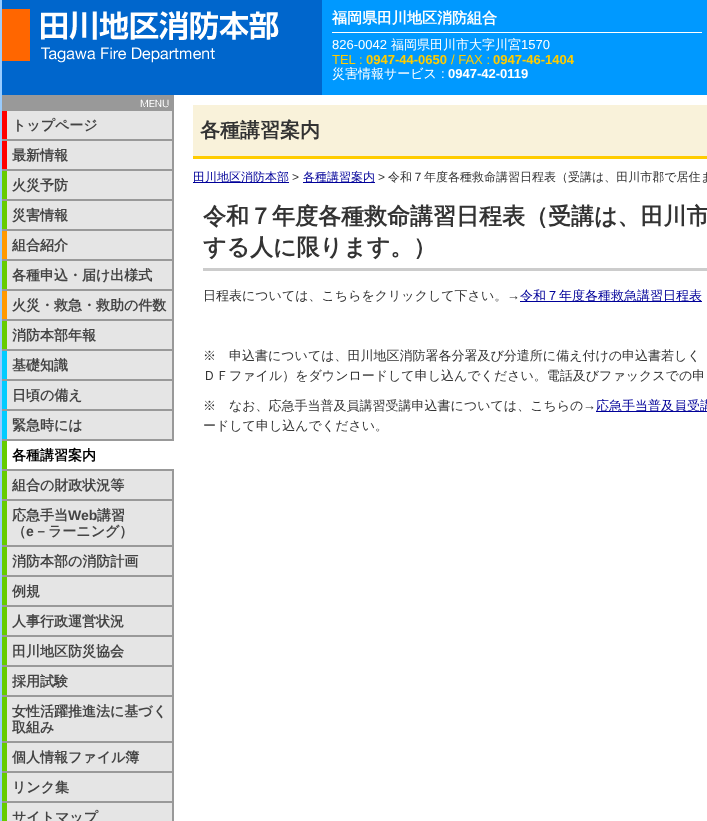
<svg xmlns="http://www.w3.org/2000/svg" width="707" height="821">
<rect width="100%" height="100%" fill="#fff"/>
<rect width="2" height="821" fill="#9cf"/>
<rect x="2" width="320" height="95" fill="#06c"/>
<image x="2" y="9" width="277" height="54" href="media/1.png"/>
<rect x="322" width="385" height="95" fill="#09f"/>
<rect x="332" y="32" width="370" height="1" fill="#fff"/>
<text x="332" y="23" style="font-family:WenQuanYi Zen Hei;font-size:15px;font-weight:bold;fill:#fff">福岡県田川地区消防組合</text>
<text x="332" y="49" style="font-family:Liberation Sans;font-size:13px;fill:#fff">826-0042</text>
<text x="391" y="49" style="font-family:WenQuanYi Zen Hei;font-size:13px;font-weight:500;fill:#fff">福岡県田川市大字川宮</text>
<text x="521" y="49" style="font-family:Liberation Sans;font-size:13px;fill:#fff">1570</text>
<text x="332" y="64" style="font-family:Liberation Sans;font-size:13px;fill:#fc0">TEL :</text>
<text x="366" y="64" style="font-family:Liberation Sans;font-size:13px;font-weight:bold;fill:#fc0">0947-44-0650</text>
<text x="451" y="64" style="font-family:Liberation Sans;font-size:13px;fill:#fc0">/ FAX :</text>
<text x="493" y="64" style="font-family:Liberation Sans;font-size:13px;font-weight:bold;fill:#fc0">0947-46-1404</text>
<text x="332" y="78" style="font-family:WenQuanYi Zen Hei;font-size:13px;font-weight:500;fill:#fff">災害情報サービス</text>
<text x="441" y="78" style="font-family:Liberation Sans;font-size:13px;fill:#fff">:</text>
<text x="448" y="78" style="font-family:Liberation Sans;font-size:13px;font-weight:bold;fill:#fff">0947-42-0119</text>
<rect x="2" y="95" width="172" height="726" fill="#999"/>
<image x="140" y="99" width="29" height="9" href="media/2.png"/>
<rect x="7" y="111" width="165" height="28" fill="#e5e5e5"/>
<rect x="2" y="111" width="5" height="28" fill="#f00"/>
<text x="12" y="130" style="font-family:WenQuanYi Zen Hei;font-size:14px;font-weight:bold;fill:#444">トップページ</text>
<rect x="7" y="141" width="165" height="28" fill="#e5e5e5"/>
<rect x="2" y="141" width="5" height="28" fill="#f00"/>
<text x="12" y="160" style="font-family:WenQuanYi Zen Hei;font-size:14px;font-weight:bold;fill:#444">最新情報</text>
<rect x="7" y="171" width="165" height="28" fill="#e5e5e5"/>
<rect x="2" y="171" width="5" height="28" fill="#6c0"/>
<text x="12" y="190" style="font-family:WenQuanYi Zen Hei;font-size:14px;font-weight:bold;fill:#444">火災予防</text>
<rect x="7" y="201" width="165" height="28" fill="#e5e5e5"/>
<rect x="2" y="201" width="5" height="28" fill="#6c0"/>
<text x="12" y="220" style="font-family:WenQuanYi Zen Hei;font-size:14px;font-weight:bold;fill:#444">災害情報</text>
<rect x="7" y="231" width="165" height="28" fill="#e5e5e5"/>
<rect x="2" y="231" width="5" height="28" fill="#f90"/>
<text x="12" y="250" style="font-family:WenQuanYi Zen Hei;font-size:14px;font-weight:bold;fill:#444">組合紹介</text>
<rect x="7" y="261" width="165" height="28" fill="#e5e5e5"/>
<rect x="2" y="261" width="5" height="28" fill="#6c0"/>
<text x="12" y="280" style="font-family:WenQuanYi Zen Hei;font-size:14px;font-weight:bold;fill:#444">各種申込・届け出様式</text>
<rect x="7" y="291" width="165" height="28" fill="#e5e5e5"/>
<rect x="2" y="291" width="5" height="28" fill="#f90"/>
<text x="12" y="310" style="font-family:WenQuanYi Zen Hei;font-size:14px;font-weight:bold;fill:#444">火災・救急・救助の件数</text>
<rect x="7" y="321" width="165" height="28" fill="#e5e5e5"/>
<rect x="2" y="321" width="5" height="28" fill="#6c0"/>
<text x="12" y="340" style="font-family:WenQuanYi Zen Hei;font-size:14px;font-weight:bold;fill:#444">消防本部年報</text>
<rect x="7" y="351" width="165" height="28" fill="#e5e5e5"/>
<rect x="2" y="351" width="5" height="28" fill="#0cf"/>
<text x="12" y="370" style="font-family:WenQuanYi Zen Hei;font-size:14px;font-weight:bold;fill:#444">基礎知識</text>
<rect x="7" y="381" width="165" height="28" fill="#e5e5e5"/>
<rect x="2" y="381" width="5" height="28" fill="#0cf"/>
<text x="12" y="400" style="font-family:WenQuanYi Zen Hei;font-size:14px;font-weight:bold;fill:#444">日頃の備え</text>
<rect x="7" y="411" width="165" height="28" fill="#e5e5e5"/>
<rect x="2" y="411" width="5" height="28" fill="#0cf"/>
<text x="12" y="430" style="font-family:WenQuanYi Zen Hei;font-size:14px;font-weight:bold;fill:#444">緊急時には</text>
<rect x="7" y="441" width="167" height="28" fill="#fff"/>
<rect x="2" y="441" width="5" height="28" fill="#6c0"/>
<text x="12" y="460" style="font-family:WenQuanYi Zen Hei;font-size:14px;font-weight:bold;fill:#000">各種講習案内</text>
<rect x="7" y="471" width="165" height="28" fill="#e5e5e5"/>
<rect x="2" y="471" width="5" height="28" fill="#6c0"/>
<text x="12" y="490" style="font-family:WenQuanYi Zen Hei;font-size:14px;font-weight:bold;fill:#444">組合の財政状況等</text>
<rect x="7" y="501" width="165" height="44" fill="#e5e5e5"/>
<rect x="2" y="501" width="5" height="44" fill="#6c0"/>
<text x="12" y="520" style="font-family:WenQuanYi Zen Hei;font-size:14px;font-weight:bold;fill:#444">応急手当</text>
<text x="68" y="520" style="font-family:Liberation Sans;font-size:14px;font-weight:bold;fill:#444">Web</text>
<text x="97" y="520" style="font-family:WenQuanYi Zen Hei;font-size:14px;font-weight:bold;fill:#444">講習</text>
<text x="12" y="536" style="font-family:WenQuanYi Zen Hei;font-size:14px;font-weight:bold;fill:#444">（</text>
<text x="26" y="536" style="font-family:Liberation Sans;font-size:14px;font-weight:bold;fill:#444">e</text>
<text x="34" y="536" style="font-family:WenQuanYi Zen Hei;font-size:14px;font-weight:bold;fill:#444">－ラーニング）</text>
<rect x="7" y="547" width="165" height="28" fill="#e5e5e5"/>
<rect x="2" y="547" width="5" height="28" fill="#6c0"/>
<text x="12" y="566" style="font-family:WenQuanYi Zen Hei;font-size:14px;font-weight:bold;fill:#444">消防本部の消防計画</text>
<rect x="7" y="577" width="165" height="28" fill="#e5e5e5"/>
<rect x="2" y="577" width="5" height="28" fill="#6c0"/>
<text x="12" y="596" style="font-family:WenQuanYi Zen Hei;font-size:14px;font-weight:bold;fill:#444">例規</text>
<rect x="7" y="607" width="165" height="28" fill="#e5e5e5"/>
<rect x="2" y="607" width="5" height="28" fill="#6c0"/>
<text x="12" y="626" style="font-family:WenQuanYi Zen Hei;font-size:14px;font-weight:bold;fill:#444">人事行政運営状況</text>
<rect x="7" y="637" width="165" height="28" fill="#e5e5e5"/>
<rect x="2" y="637" width="5" height="28" fill="#6c0"/>
<text x="12" y="656" style="font-family:WenQuanYi Zen Hei;font-size:14px;font-weight:bold;fill:#444">田川地区防災協会</text>
<rect x="7" y="667" width="165" height="28" fill="#e5e5e5"/>
<rect x="2" y="667" width="5" height="28" fill="#6c0"/>
<text x="12" y="686" style="font-family:WenQuanYi Zen Hei;font-size:14px;font-weight:bold;fill:#444">採用試験</text>
<rect x="7" y="697" width="165" height="44" fill="#e5e5e5"/>
<rect x="2" y="697" width="5" height="44" fill="#6c0"/>
<text x="12" y="716" style="font-family:WenQuanYi Zen Hei;font-size:14px;font-weight:bold;fill:#444">女性活躍推進法に基づく</text>
<text x="12" y="732" style="font-family:WenQuanYi Zen Hei;font-size:14px;font-weight:bold;fill:#444">取組み</text>
<rect x="7" y="743" width="165" height="28" fill="#e5e5e5"/>
<rect x="2" y="743" width="5" height="28" fill="#6c0"/>
<text x="12" y="762" style="font-family:WenQuanYi Zen Hei;font-size:14px;font-weight:bold;fill:#444">個人情報ファイル簿</text>
<rect x="7" y="773" width="165" height="28" fill="#e5e5e5"/>
<rect x="2" y="773" width="5" height="28" fill="#6c0"/>
<text x="12" y="792" style="font-family:WenQuanYi Zen Hei;font-size:14px;font-weight:bold;fill:#444">リンク集</text>
<rect x="7" y="803" width="165" height="18" fill="#e5e5e5"/>
<rect x="2" y="803" width="5" height="18" fill="#6c0"/>
<text x="12" y="822" style="font-family:WenQuanYi Zen Hei;font-size:14px;font-weight:bold;fill:#444">サイトマップ</text>
<rect x="193" y="105" width="514" height="51" fill="#f9f2da"/>
<rect x="193" y="156" width="514" height="3" fill="#fc0"/>
<text x="200" y="137" style="font-family:WenQuanYi Zen Hei;font-size:20px;font-weight:bold;fill:#333">各種講習案内</text>
<rect x="193" y="182" width="96" height="1" fill="#009"/>
<text x="193" y="181" style="font-family:WenQuanYi Zen Hei;font-size:12px;font-weight:500;fill:#009">田川地区消防本部</text>
<text x="292" y="181" style="font-family:Liberation Sans;font-size:12px;fill:#333">&gt;</text>
<rect x="303" y="182" width="72" height="1" fill="#009"/>
<text x="303" y="181" style="font-family:WenQuanYi Zen Hei;font-size:12px;font-weight:500;fill:#009">各種講習案内</text>
<text x="378" y="181" style="font-family:Liberation Sans;font-size:12px;fill:#333">&gt;</text>
<text x="388" y="181" style="font-family:WenQuanYi Zen Hei;font-size:12px;font-weight:500;fill:#333">令和７年度各種救命講習日程表（受講は、田川市郡で居住ま</text>
<rect x="203" y="268" width="504" height="3" fill="#ccc"/>
<text x="203" y="224" style="font-family:WenQuanYi Zen Hei;font-size:23px;font-weight:bold;fill:#333">令和７年度各種救命講習日程表（受講は、田川市</text>
<text x="203" y="255" style="font-family:WenQuanYi Zen Hei;font-size:23px;font-weight:bold;fill:#333">する人に限ります。）</text>
<text x="203" y="300" style="font-family:WenQuanYi Zen Hei;font-size:13px;font-weight:500;fill:#333">日程表については、こちらをクリックして下さい。</text>
<text x="507" y="300" style="font-family:Liberation Sans;font-size:13px;fill:#333">→</text>
<rect x="520" y="301" width="182" height="1" fill="#009"/>
<text x="520" y="300" style="font-family:WenQuanYi Zen Hei;font-size:13px;font-weight:500;fill:#009">令和７年度各種救急講習日程表</text>
<text x="203" y="360" style="font-family:WenQuanYi Zen Hei;font-size:13px;font-weight:500;fill:#333">※　申込書については、田川地区消防署各分署及び分遣所に備え付けの申込書若しく</text>
<text x="203" y="380" style="font-family:WenQuanYi Zen Hei;font-size:13px;font-weight:500;fill:#333">ＤＦファイル）をダウンロードして申し込んでください。電話及びファックスでの申</text>
<text x="203" y="410" style="font-family:WenQuanYi Zen Hei;font-size:13px;font-weight:500;fill:#333">※　なお、応急手当普及員講習受講申込書については、こちらの</text>
<text x="583" y="410" style="font-family:Liberation Sans;font-size:13px;fill:#333">→</text>
<rect x="596" y="411" width="111" height="1" fill="#009"/>
<text x="596" y="410" style="font-family:WenQuanYi Zen Hei;font-size:13px;font-weight:500;fill:#009">応急手当普及員受講</text>
<text x="203" y="430" style="font-family:WenQuanYi Zen Hei;font-size:13px;font-weight:500;fill:#333">ードして申し込んでください。</text>
</svg>
